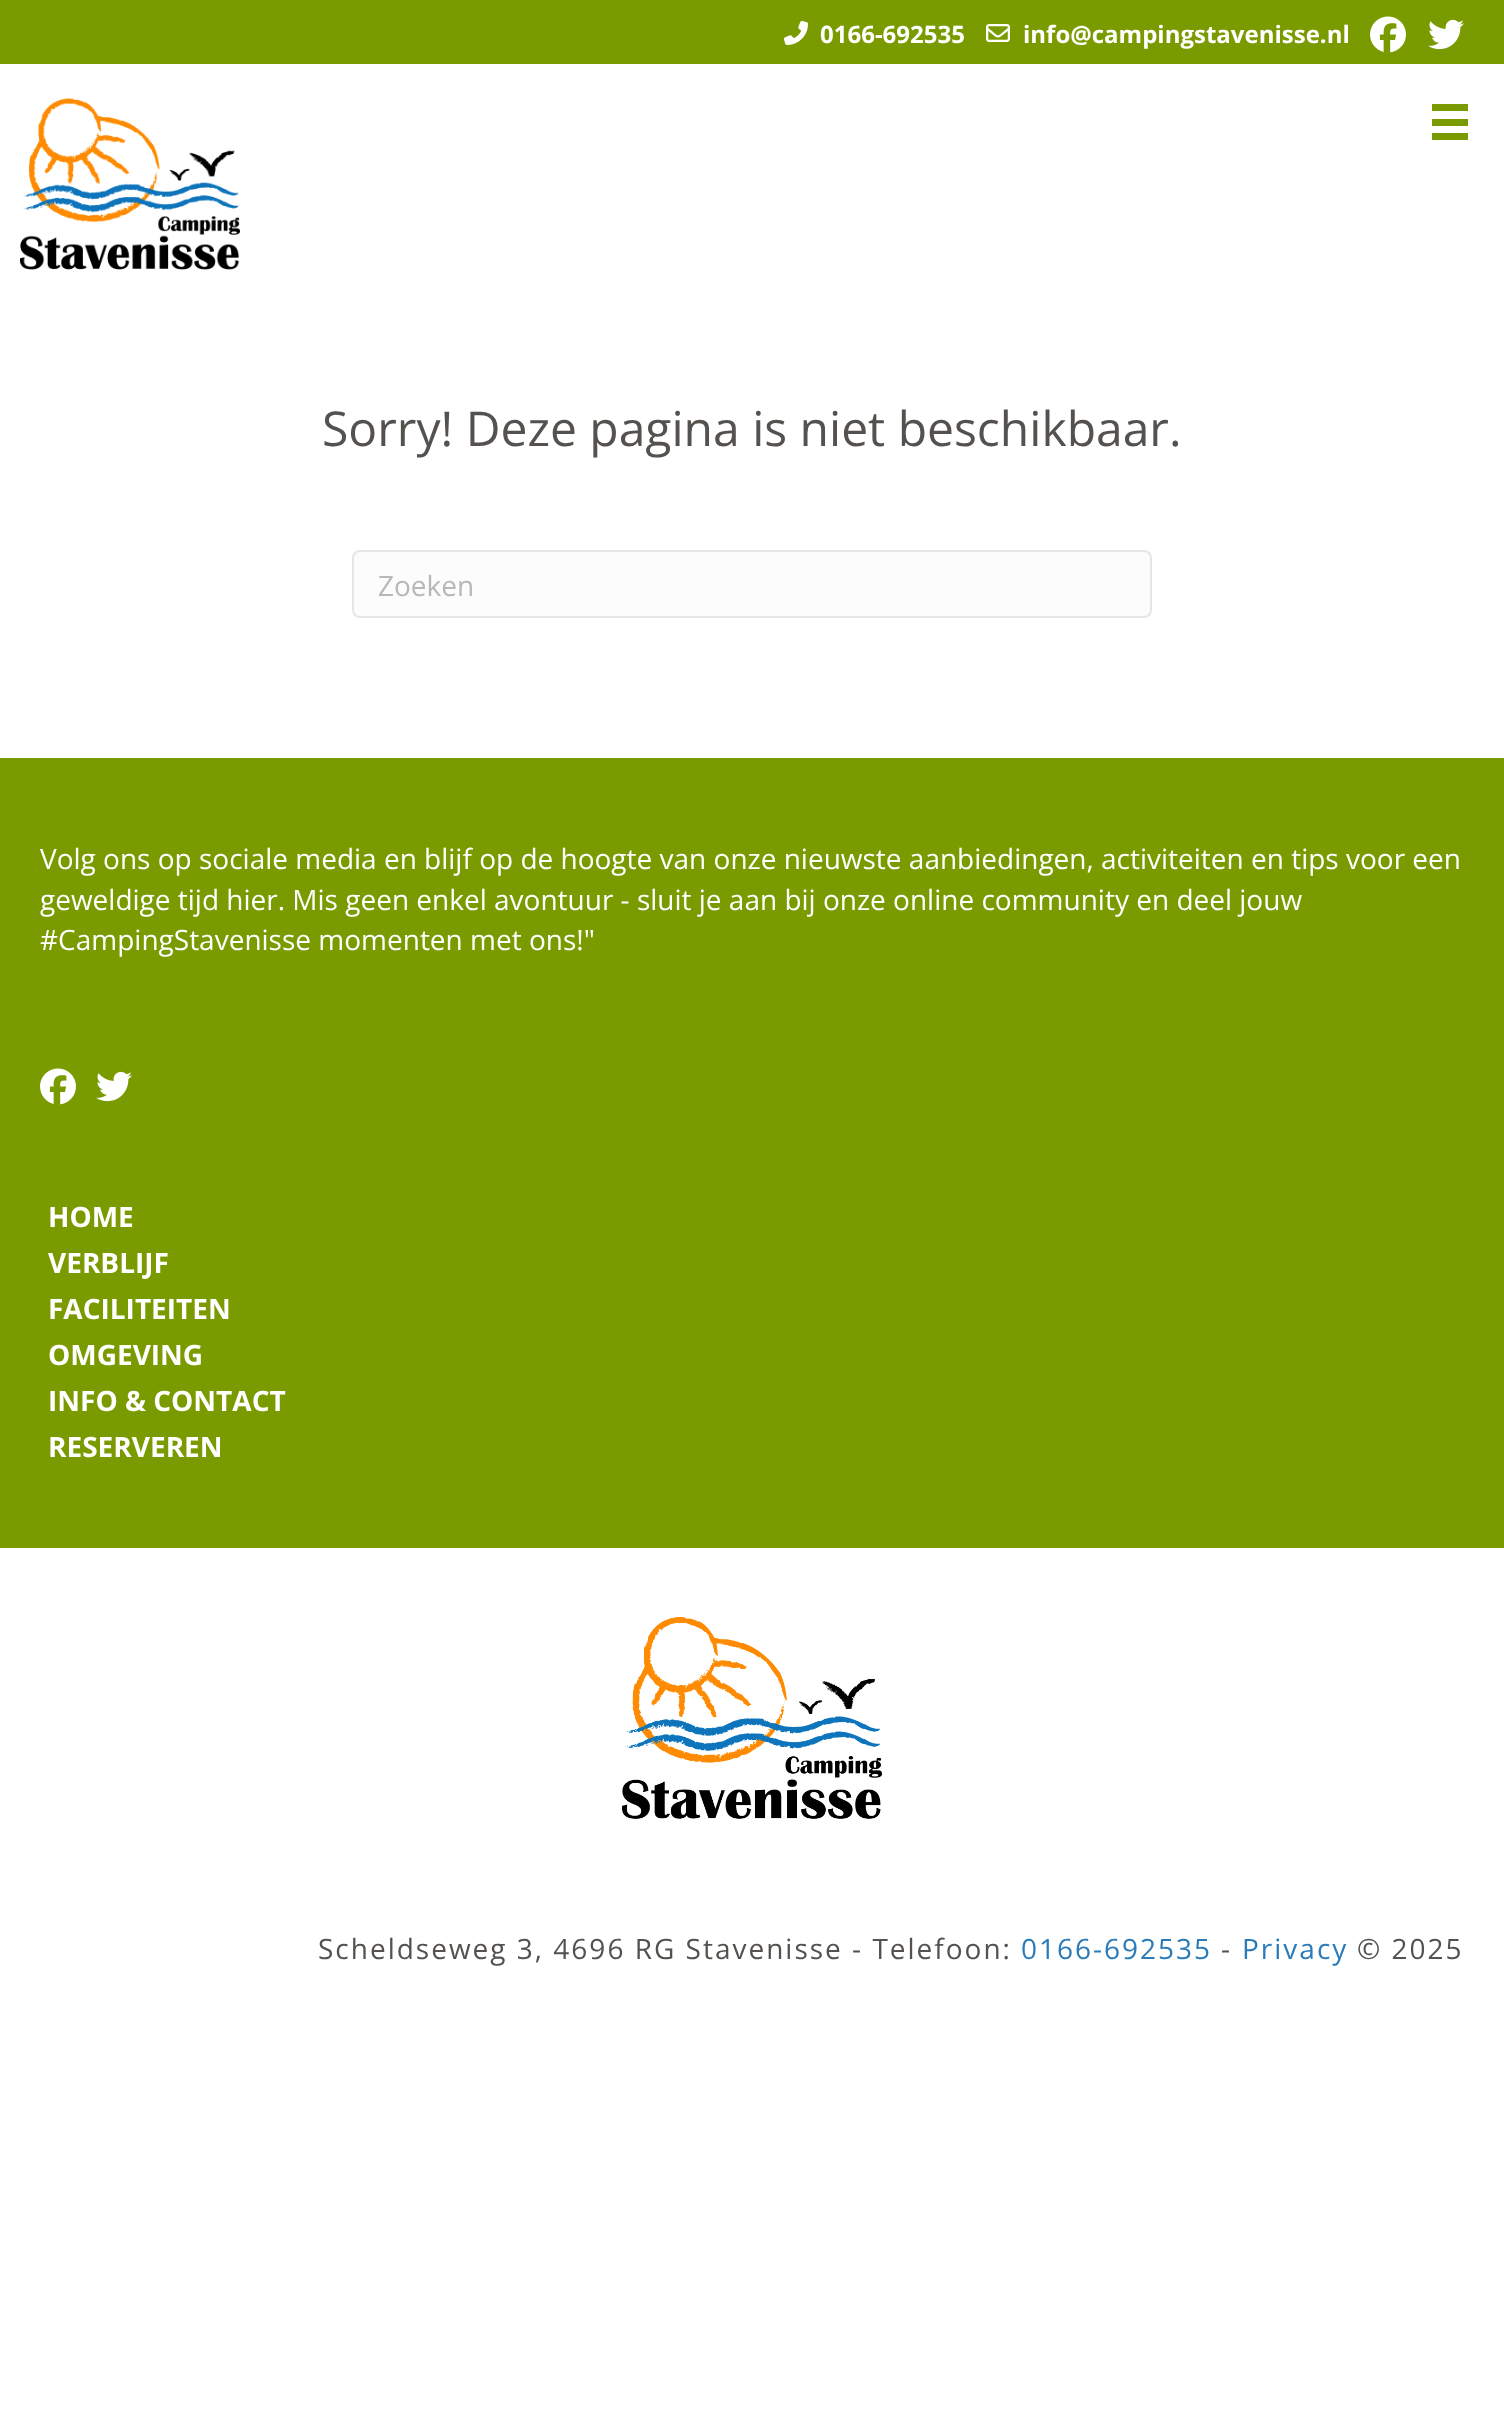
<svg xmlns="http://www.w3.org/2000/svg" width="1504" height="2411">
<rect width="100%" height="100%" fill="#fff"/>
<rect width="1504" height="64" fill="#799b00"/>
<image x="784" y="21" width="24" height="24" href="media/1.png"/>
<text x="820" y="43" style="font-family:Open Sans;font-size:24px;font-weight:bold;fill:#fff">0166-692535</text>
<image x="986" y="24" width="24" height="18" href="media/2.png"/>
<text x="1023" y="43" style="font-family:Open Sans;font-size:24px;font-weight:bold;fill:#fff">info@campingstavenisse.nl</text>
<image x="1370" y="16" width="36" height="37" href="media/3.png"/>
<image x="1428" y="19" width="36" height="31" href="media/4.png"/>
<image x="20" y="98" width="220" height="172" href="media/5.png"/>
<rect x="1432" y="104" width="36" height="7" fill="#799b00"/>
<rect x="1432" y="119" width="36" height="7" fill="#799b00"/>
<rect x="1432" y="133" width="36" height="7" fill="#799b00"/>
<text x="322" y="446" style="font-family:Open Sans;font-size:48px;fill:#54514e">Sorry! Deze pagina is niet beschikbaar.</text>
<rect x="353" y="551" width="798" height="66" rx="7" fill="#fcfcfc" stroke="#e6e6e6" stroke-width="2"/>
<text x="378" y="596" style="font-family:Open Sans;font-size:28px;fill:#b9b8b6">Zoeken</text>
<rect y="758" width="1504" height="790" fill="#799b00"/>
<text x="40" y="869" style="font-family:Open Sans;font-size:28px;fill:#fff">Volg ons op sociale media en blijf op de hoogte van onze nieuwste aanbiedingen, activiteiten en tips voor een</text>
<text x="40" y="910" style="font-family:Open Sans;font-size:28px;fill:#fff">geweldige tijd hier. Mis geen enkel avontuur - sluit je aan bij onze online community en deel jouw</text>
<text x="40" y="950" style="font-family:Open Sans;font-size:28px;fill:#fff">#CampingStavenisse momenten met ons!"</text>
<image x="40" y="1068" width="36" height="37" href="media/3.png"/>
<image x="96" y="1071" width="36" height="31" href="media/4.png"/>
<text x="48" y="1227" style="font-family:Open Sans;font-size:28px;font-weight:bold;fill:#fff">HOME</text>
<text x="48" y="1273" style="font-family:Open Sans;font-size:28px;font-weight:bold;fill:#fff">VERBLIJF</text>
<text x="48" y="1319" style="font-family:Open Sans;font-size:28px;font-weight:bold;fill:#fff">FACILITEITEN</text>
<text x="48" y="1365" style="font-family:Open Sans;font-size:28px;font-weight:bold;fill:#fff">OMGEVING</text>
<text x="48" y="1411" style="font-family:Open Sans;font-size:28px;font-weight:bold;fill:#fff">INFO &amp; CONTACT</text>
<text x="48" y="1457" style="font-family:Open Sans;font-size:28px;font-weight:bold;fill:#fff">RESERVEREN</text>
<image x="622" y="1617" width="260" height="202" href="media/6.png"/>
<text x="318" y="1959" style="font-family:Open Sans;font-size:28px;letter-spacing:2px;fill:#54514e">Scheldseweg 3, 4696 RG Stavenisse - Telefoon:</text>
<text x="1021" y="1959" style="font-family:Open Sans;font-size:28px;letter-spacing:2px;fill:#2b7bb9">0166-692535</text>
<text x="1221" y="1959" style="font-family:Open Sans;font-size:28px;letter-spacing:2px;fill:#54514e">-</text>
<text x="1242" y="1959" style="font-family:Open Sans;font-size:28px;letter-spacing:2px;fill:#2b7bb9">Privacy</text>
<text x="1357" y="1959" style="font-family:Open Sans;font-size:28px;letter-spacing:2px;fill:#54514e">© 2025</text>
</svg>
